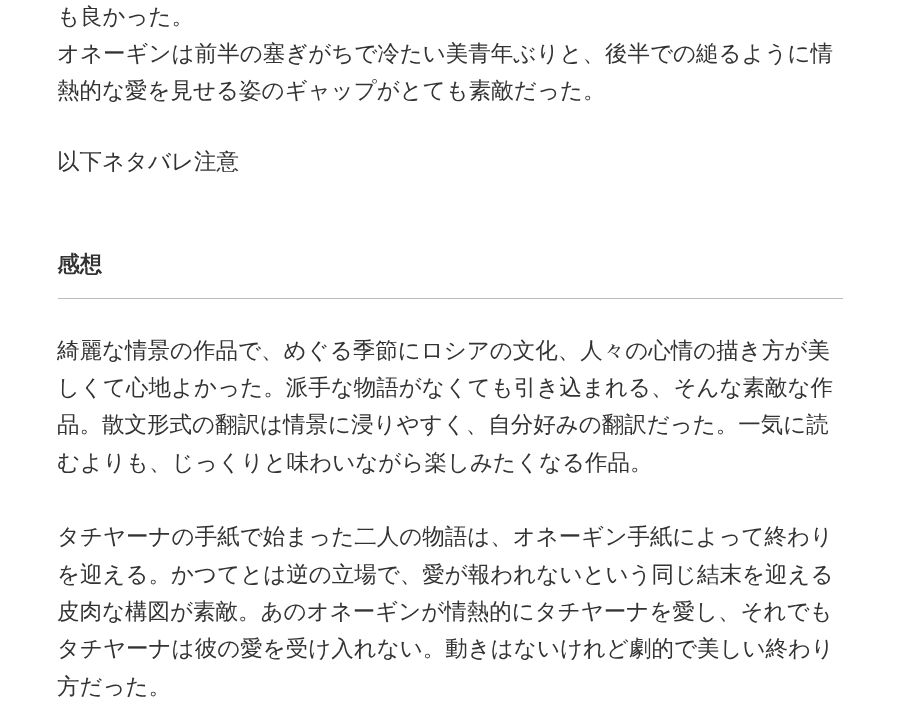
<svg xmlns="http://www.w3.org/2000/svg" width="898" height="717">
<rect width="100%" height="100%" fill="#fff"/>
<text x="57" y="24" style="font-family:WenQuanYi Zen Hei;font-size:22.5px;font-weight:500;fill:#333">も良かった。</text>
<text x="57" y="61" style="font-family:WenQuanYi Zen Hei;font-size:22.5px;font-weight:500;fill:#333">オネーギンは前半の塞ぎがちで冷たい美青年ぶりと、後半での縋るように情</text>
<text x="57" y="98" style="font-family:WenQuanYi Zen Hei;font-size:22.5px;font-weight:500;fill:#333">熱的な愛を見せる姿のギャップがとても素敵だった。</text>
<text x="57" y="169" style="font-family:WenQuanYi Zen Hei;font-size:22.5px;font-weight:500;fill:#333">以下ネタバレ注意</text>
<text x="57" y="272" style="font-family:WenQuanYi Zen Hei;font-size:22.5px;font-weight:bold;fill:#333">感想</text>
<rect x="58" y="298" width="785" height="1" fill="#bbb"/>
<text x="57" y="358" style="font-family:WenQuanYi Zen Hei;font-size:22.5px;font-weight:500;fill:#333">綺麗な情景の作品で、めぐる季節にロシアの文化、人々の心情の描き方が美</text>
<text x="57" y="395" style="font-family:WenQuanYi Zen Hei;font-size:22.5px;font-weight:500;fill:#333">しくて心地よかった。派手な物語がなくても引き込まれる、そんな素敵な作</text>
<text x="57" y="432" style="font-family:WenQuanYi Zen Hei;font-size:22.5px;font-weight:500;fill:#333">品。散文形式の翻訳は情景に浸りやすく、自分好みの翻訳だった。一気に読</text>
<text x="57" y="470" style="font-family:WenQuanYi Zen Hei;font-size:22.5px;font-weight:500;fill:#333">むよりも、じっくりと味わいながら楽しみたくなる作品。</text>
<text x="57" y="544" style="font-family:WenQuanYi Zen Hei;font-size:22.5px;font-weight:500;fill:#333">タチヤーナの手紙で始まった二人の物語は、オネーギン手紙によって終わり</text>
<text x="57" y="582" style="font-family:WenQuanYi Zen Hei;font-size:22.5px;font-weight:500;fill:#333">を迎える。かつてとは逆の立場で、愛が報われないという同じ結末を迎える</text>
<text x="57" y="619" style="font-family:WenQuanYi Zen Hei;font-size:22.5px;font-weight:500;fill:#333">皮肉な構図が素敵。あのオネーギンが情熱的にタチヤーナを愛し、それでも</text>
<text x="57" y="656" style="font-family:WenQuanYi Zen Hei;font-size:22.5px;font-weight:500;fill:#333">タチヤーナは彼の愛を受け入れない。動きはないけれど劇的で美しい終わり</text>
<text x="57" y="694" style="font-family:WenQuanYi Zen Hei;font-size:22.5px;font-weight:500;fill:#333">方だった。</text>
</svg>
